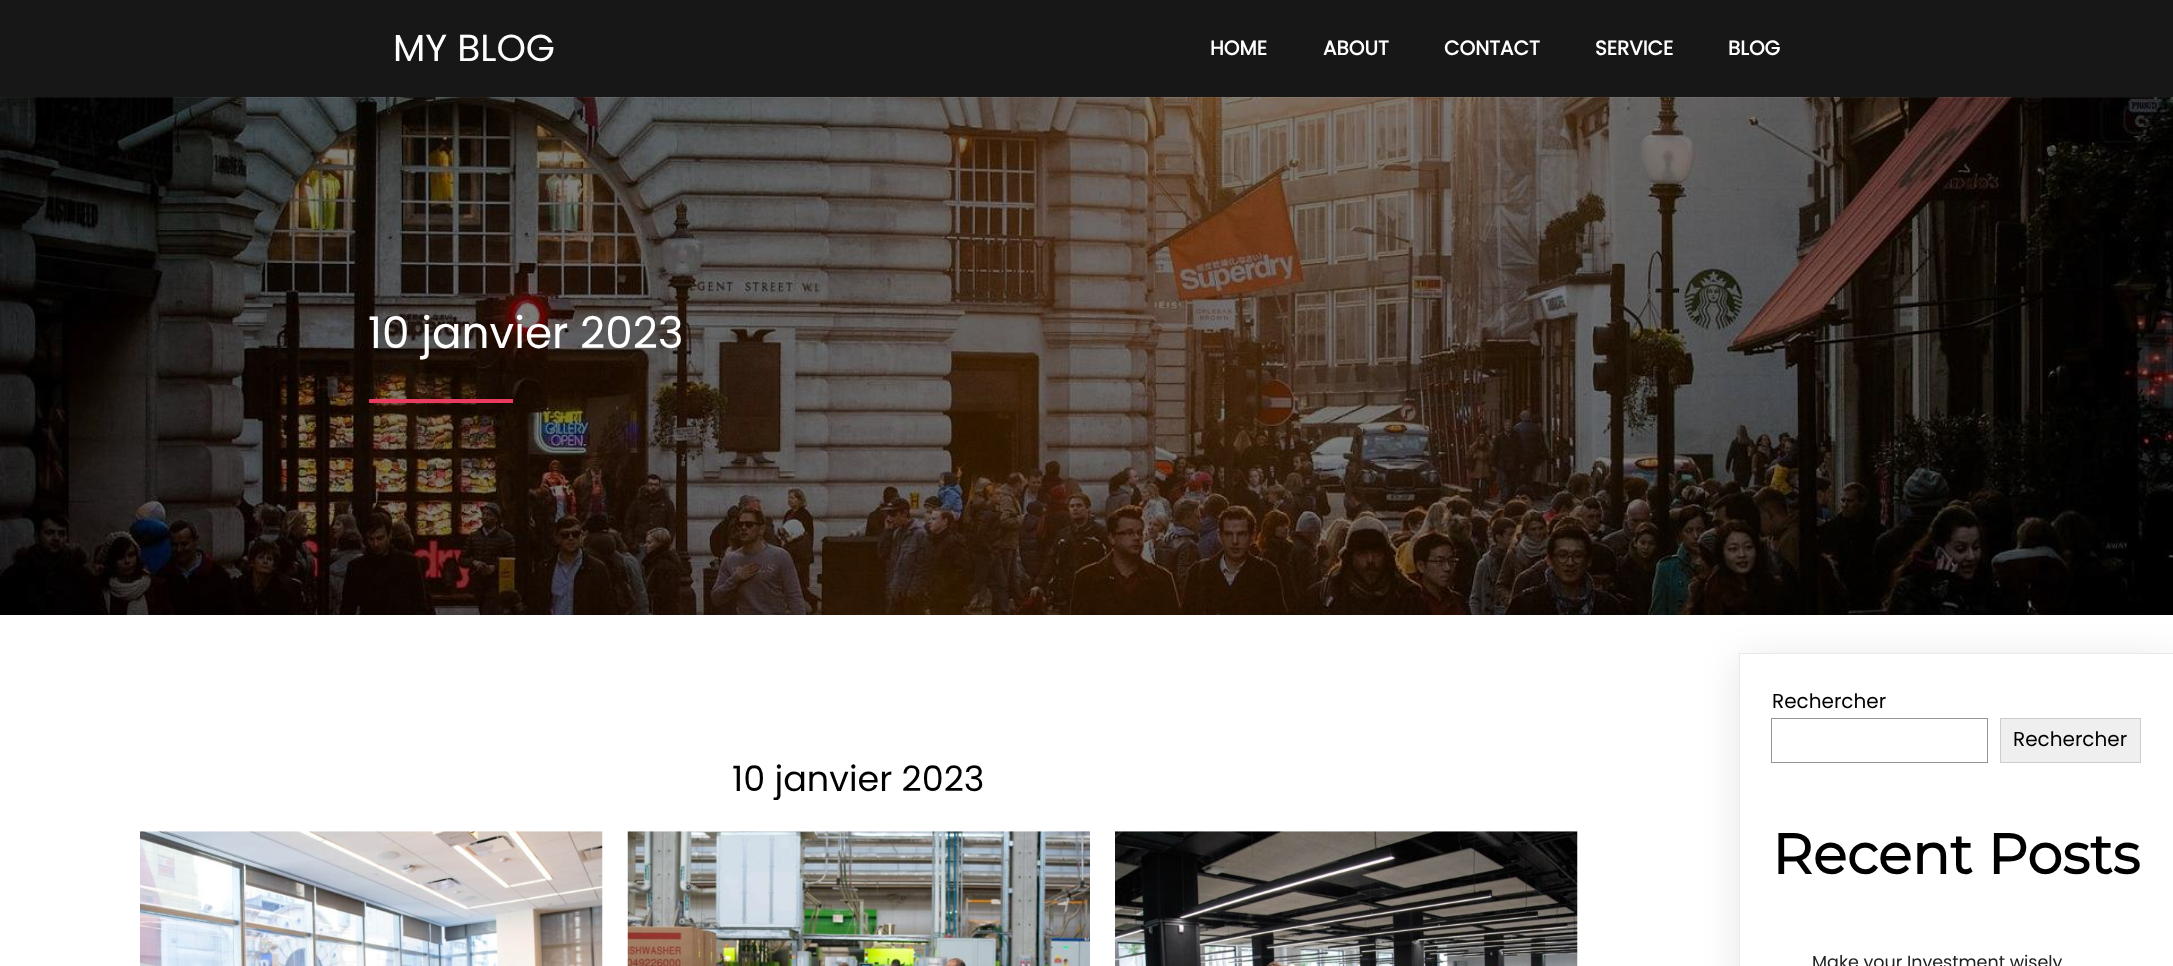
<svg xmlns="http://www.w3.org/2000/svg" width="2173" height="966">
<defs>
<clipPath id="clip1"><path d="M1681 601h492v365h-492zm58 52h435v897h-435z" clip-rule="evenodd"/></clipPath>
</defs>
<rect width="100%" height="100%" fill="#fff"/>
<rect width="2173" height="98" fill="#171717"/>
<text x="393" y="61" style="font-family:Poppins;font-size:37.5px;fill:#fff">MY BLOG</text>
<text x="1210" y="55" style="font-family:Poppins;font-size:20px;font-weight:bold;fill:#fff">HOME</text>
<text x="1323" y="55" style="font-family:Poppins;font-size:20px;font-weight:bold;fill:#fff">ABOUT</text>
<text x="1444" y="55" style="font-family:Poppins;font-size:20px;font-weight:bold;fill:#fff">CONTACT</text>
<text x="1595" y="55" style="font-family:Poppins;font-size:20px;font-weight:bold;fill:#fff">SERVICE</text>
<text x="1728" y="55" style="font-family:Poppins;font-size:20px;font-weight:bold;fill:#fff">BLOG</text>
<g clip-path="url(#clip1)">
<rect x="1739" y="659" width="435" height="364" fill="#0000001a" filter="blur(19px)"/>
</g>
<image x="0" y="97" width="2173" height="518" href="media/1.png"/>
<text x="368" y="348" style="font-family:Poppins;font-size:43.75px;fill:#fff">10 janvier 2023</text>
<rect x="369" y="399" width="144" height="4" fill="#ea3a60"/>
<text x="732" y="791" style="font-family:Poppins;font-size:35px;fill:#000">10 janvier 2023</text>
<image x="140" y="831" width="463" height="135" href="media/2.png"/>
<image x="627" y="831" width="463" height="135" href="media/3.png"/>
<image x="1115" y="831" width="463" height="135" href="media/4.png"/>
<rect x="1739.5" y="653.5" width="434" height="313" fill="none" stroke="#eaeaea"/>
<text x="1772" y="708" style="font-family:Poppins;font-size:20px;fill:#000">Rechercher</text>
<rect x="1771.5" y="718.5" width="216" height="44" fill="none" stroke="#949494"/>
<rect x="2000.5" y="718.5" width="140" height="44" fill="#efefef" stroke="#ccc"/>
<text x="2013" y="746" style="font-family:Poppins;font-size:20px;fill:#000">Rechercher</text>
<text x="1772" y="874" style="font-family:Montserrat;font-size:56.25px;font-weight:bold;fill:#000">Recent Posts</text>
<text x="1812" y="968" style="font-family:Poppins;font-size:17.5px;fill:#212121">Make your Investment wisely</text>
</svg>
